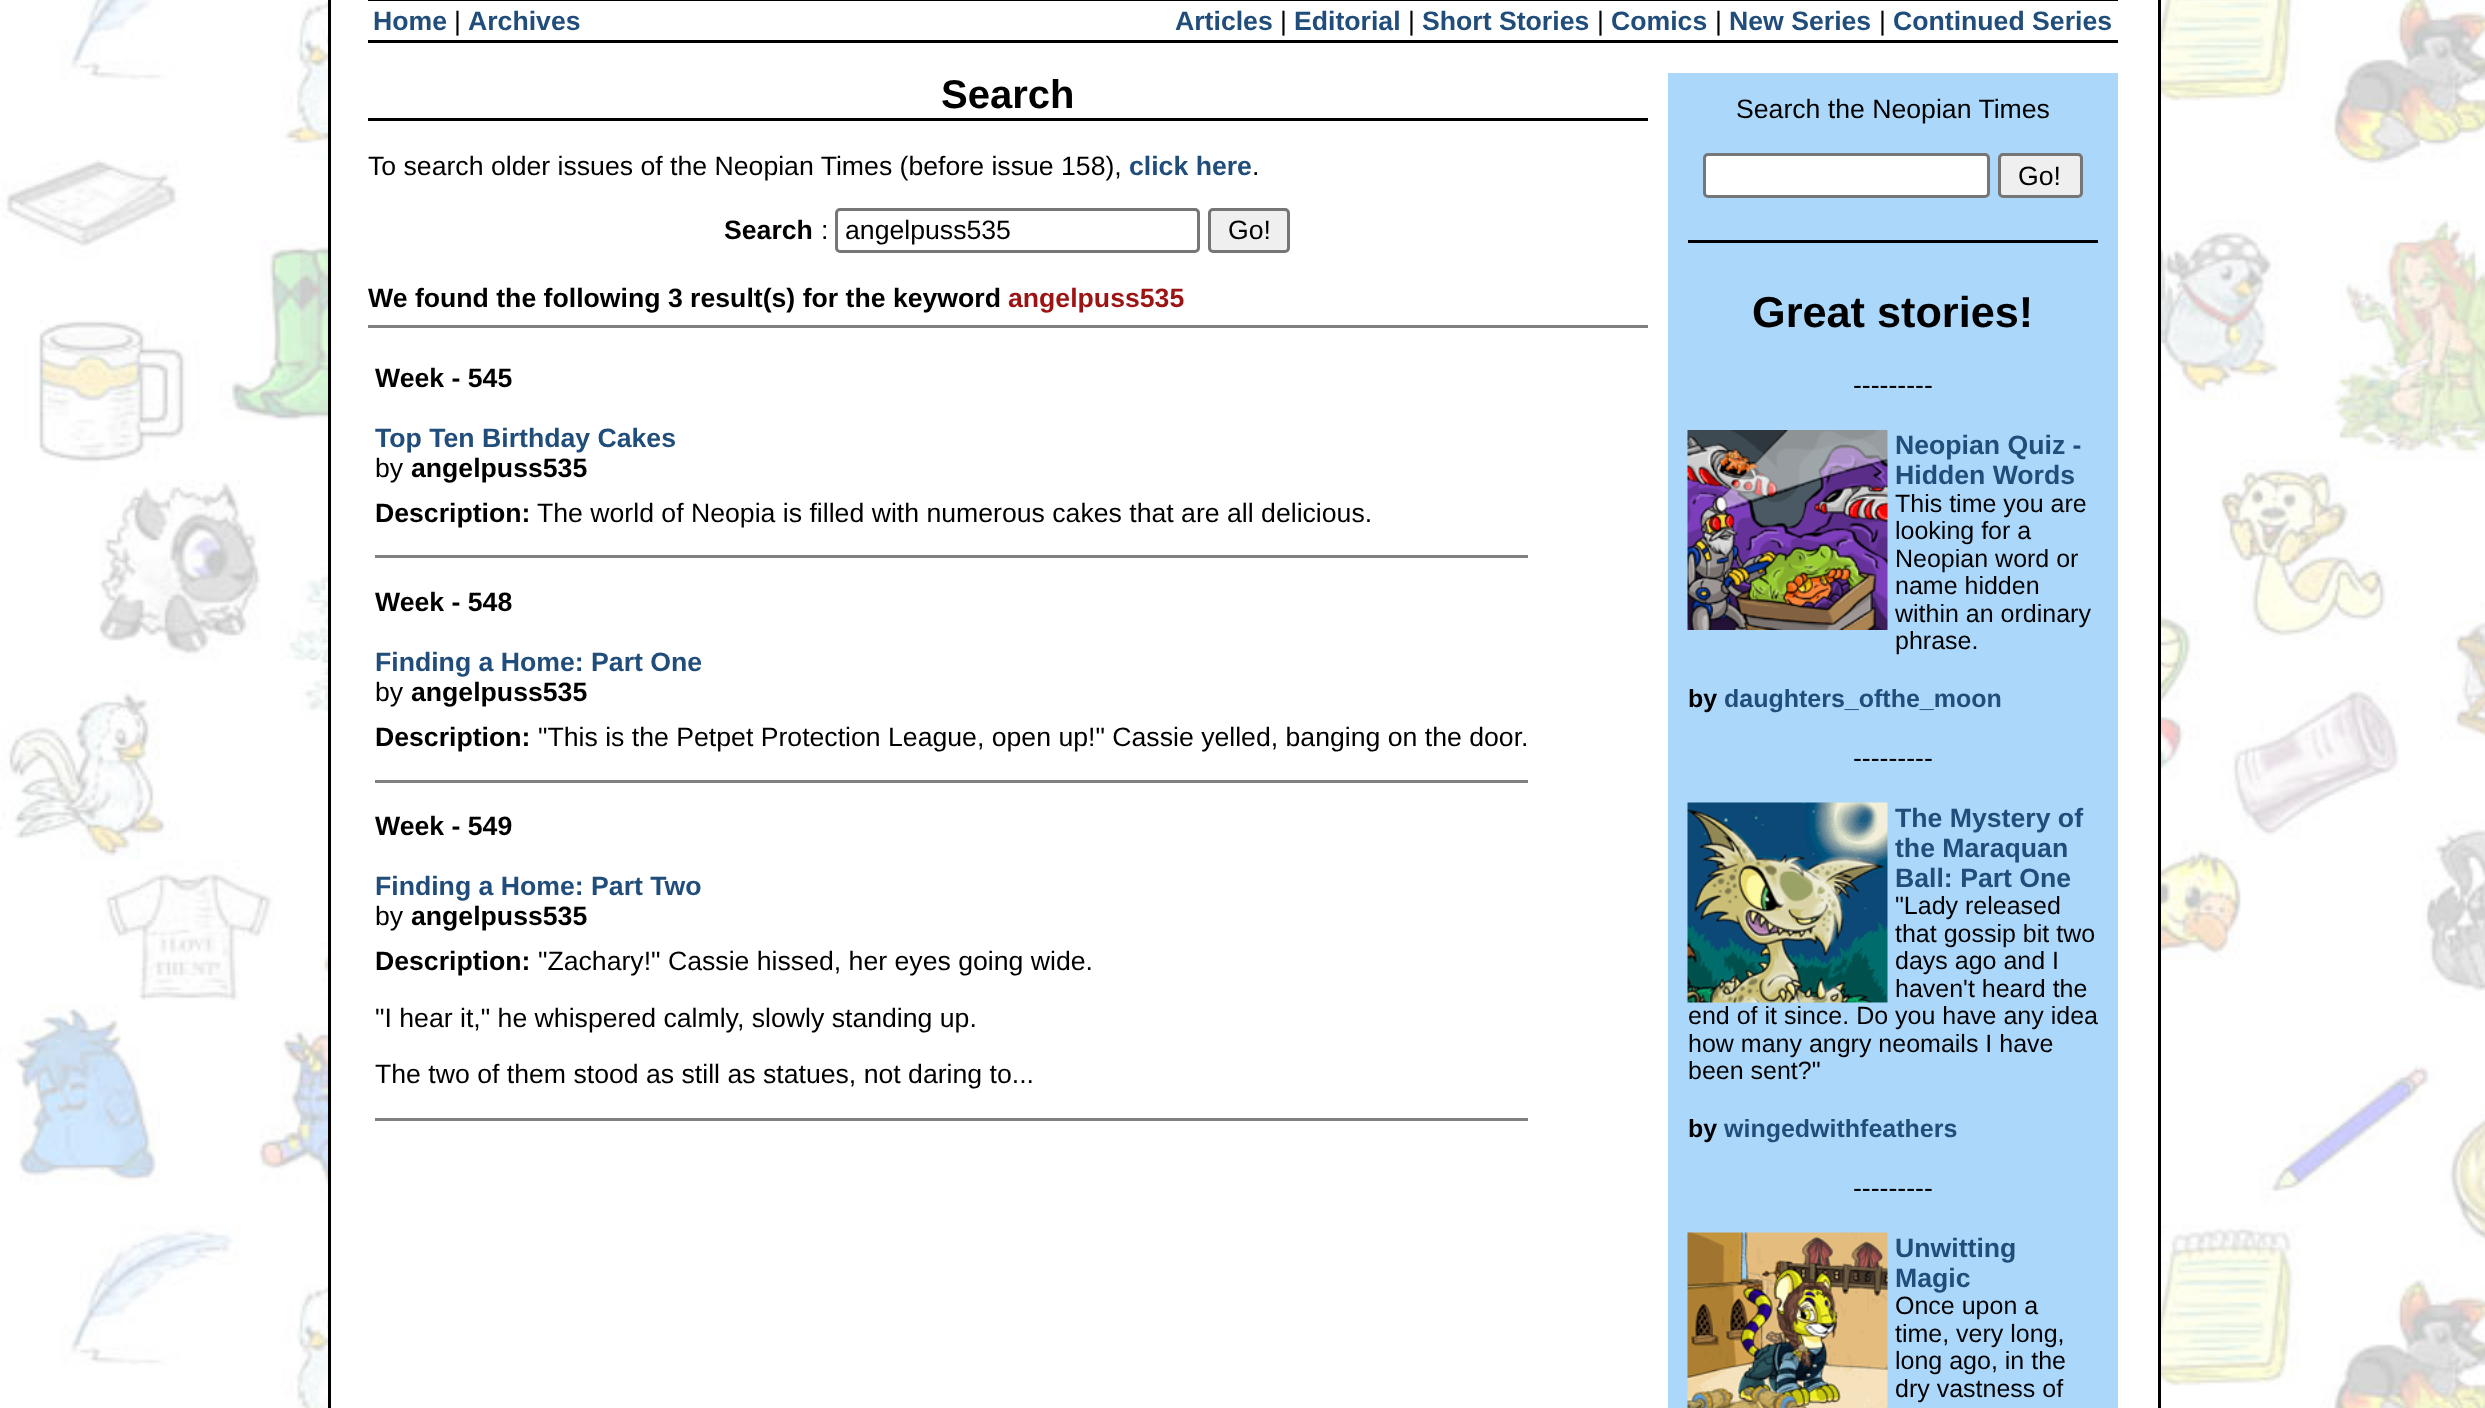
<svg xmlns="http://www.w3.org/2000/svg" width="2485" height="1408">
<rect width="100%" height="100%" fill="#fff"/>
<image x="0" y="0" width="2485" height="1408" href="media/1.png"/>
<rect x="331" width="1827" height="1408" fill="#fff"/>
<rect x="2158" width="3" height="1408" fill="#000"/>
<rect x="328" width="3" height="1408" fill="#000"/>
<rect x="368" width="1750" height="1" fill="#000"/>
<rect x="368" y="40" width="1750" height="3" fill="#000"/>
<text x="373" y="30" style="font-family:Liberation Sans;font-size:26.65px;font-weight:bold;fill:#214d7b">Home</text>
<text x="454" y="30" style="font-family:Liberation Sans;font-size:26.65px;fill:#000">|</text>
<text x="468" y="30" style="font-family:Liberation Sans;font-size:26.65px;font-weight:bold;fill:#214d7b">Archives</text>
<text x="1175" y="30" style="font-family:Liberation Sans;font-size:26.65px;font-weight:bold;fill:#214d7b">Articles</text>
<text x="1280" y="30" style="font-family:Liberation Sans;font-size:26.65px;fill:#000">|</text>
<text x="1294" y="30" style="font-family:Liberation Sans;font-size:26.65px;font-weight:bold;fill:#214d7b">Editorial</text>
<text x="1408" y="30" style="font-family:Liberation Sans;font-size:26.65px;fill:#000">|</text>
<text x="1422" y="30" style="font-family:Liberation Sans;font-size:26.65px;font-weight:bold;fill:#214d7b">Short Stories</text>
<text x="1597" y="30" style="font-family:Liberation Sans;font-size:26.65px;fill:#000">|</text>
<text x="1611" y="30" style="font-family:Liberation Sans;font-size:26.65px;font-weight:bold;fill:#214d7b">Comics</text>
<text x="1715" y="30" style="font-family:Liberation Sans;font-size:26.65px;fill:#000">|</text>
<text x="1729" y="30" style="font-family:Liberation Sans;font-size:26.65px;font-weight:bold;fill:#214d7b">New Series</text>
<text x="1879" y="30" style="font-family:Liberation Sans;font-size:26.65px;fill:#000">|</text>
<text x="1893" y="30" style="font-family:Liberation Sans;font-size:26.65px;font-weight:bold;fill:#214d7b">Continued Series</text>
<rect x="368" y="118" width="1280" height="3" fill="#000"/>
<text x="941" y="108" style="font-family:Liberation Sans;font-size:40px;font-weight:bold;fill:#000">Search</text>
<text x="368" y="175" style="font-family:Liberation Sans;font-size:26.65px;fill:#000">To search older issues of the Neopian Times (before issue 158),</text>
<text x="1129" y="175" style="font-family:Liberation Sans;font-size:26.65px;font-weight:bold;fill:#214d7b">click here</text>
<text x="1252" y="175" style="font-family:Liberation Sans;font-size:26.65px;fill:#000">.</text>
<text x="724" y="239" style="font-family:Liberation Sans;font-size:26.65px;font-weight:bold;fill:#000">Search</text>
<text x="821" y="239" style="font-family:Liberation Sans;font-size:26.65px;fill:#000">:</text>
<rect x="836.5" y="209.5" width="362" height="42" rx="3.5" fill="none" stroke="#767676" stroke-width="3"/>
<text x="845" y="239" style="font-family:Liberation Sans;font-size:26.65px;fill:#000">angelpuss535</text>
<rect x="1209.5" y="209.5" width="79" height="42" rx="3.5" fill="#efefef" stroke="#767676" stroke-width="3"/>
<text x="1228" y="239" style="font-family:Liberation Sans;font-size:26.65px;fill:#000">Go!</text>
<text x="368" y="307" style="font-family:Liberation Sans;font-size:26.65px;font-weight:bold;fill:#000">We found the following 3 result(s) for the keyword</text>
<text x="1008" y="307" style="font-family:Liberation Sans;font-size:26.65px;font-weight:bold;fill:#9b1313">angelpuss535</text>
<rect x="368" y="325" width="1280" height="3" fill="#808080"/>
<text x="375" y="387" style="font-family:Liberation Sans;font-size:26.65px;font-weight:bold;fill:#000">Week - 545</text>
<text x="375" y="447" style="font-family:Liberation Sans;font-size:26.65px;font-weight:bold;fill:#214d7b">Top Ten Birthday Cakes</text>
<text x="375" y="477" style="font-family:Liberation Sans;font-size:26.65px;fill:#000">by</text>
<text x="411" y="477" style="font-family:Liberation Sans;font-size:26.65px;font-weight:bold;fill:#000">angelpuss535</text>
<text x="375" y="522" style="font-family:Liberation Sans;font-size:26.65px;font-weight:bold;fill:#000">Description:</text>
<text x="537" y="522" style="font-family:Liberation Sans;font-size:26.65px;fill:#000">The world of Neopia is filled with numerous cakes that are all delicious.</text>
<rect x="375" y="555" width="1153" height="3" fill="#808080"/>
<text x="375" y="611" style="font-family:Liberation Sans;font-size:26.65px;font-weight:bold;fill:#000">Week - 548</text>
<text x="375" y="671" style="font-family:Liberation Sans;font-size:26.65px;font-weight:bold;fill:#214d7b">Finding a Home: Part One</text>
<text x="375" y="701" style="font-family:Liberation Sans;font-size:26.65px;fill:#000">by</text>
<text x="411" y="701" style="font-family:Liberation Sans;font-size:26.65px;font-weight:bold;fill:#000">angelpuss535</text>
<text x="375" y="746" style="font-family:Liberation Sans;font-size:26.65px;font-weight:bold;fill:#000">Description:</text>
<text x="538" y="746" style="font-family:Liberation Sans;font-size:26.65px;fill:#000">"This is the Petpet Protection League, open up!" Cassie yelled, banging on the door.</text>
<rect x="375" y="780" width="1153" height="3" fill="#808080"/>
<text x="375" y="835" style="font-family:Liberation Sans;font-size:26.65px;font-weight:bold;fill:#000">Week - 549</text>
<text x="375" y="895" style="font-family:Liberation Sans;font-size:26.65px;font-weight:bold;fill:#214d7b">Finding a Home: Part Two</text>
<text x="375" y="925" style="font-family:Liberation Sans;font-size:26.65px;fill:#000">by</text>
<text x="411" y="925" style="font-family:Liberation Sans;font-size:26.65px;font-weight:bold;fill:#000">angelpuss535</text>
<text x="375" y="970" style="font-family:Liberation Sans;font-size:26.65px;font-weight:bold;fill:#000">Description:</text>
<text x="538" y="970" style="font-family:Liberation Sans;font-size:26.65px;fill:#000">"Zachary!" Cassie hissed, her eyes going wide.</text>
<text x="375" y="1027" style="font-family:Liberation Sans;font-size:26.65px;fill:#000">"I hear it," he whispered calmly, slowly standing up.</text>
<text x="375" y="1083" style="font-family:Liberation Sans;font-size:26.65px;fill:#000">The two of them stood as still as statues, not daring to...</text>
<rect x="375" y="1118" width="1153" height="3" fill="#808080"/>
<rect x="1668" y="73" width="450" height="1335" fill="#abd7fb"/>
<text x="1736" y="118" style="font-family:Liberation Sans;font-size:26.65px;fill:#000">Search the Neopian Times</text>
<rect x="1704.5" y="154.5" width="284" height="42" rx="3.5" fill="#fff" stroke="#767676" stroke-width="3"/>
<rect x="1999.5" y="154.5" width="82" height="42" rx="3.5" fill="#efefef" stroke="#767676" stroke-width="3"/>
<text x="2018" y="185" style="font-family:Liberation Sans;font-size:26.65px;fill:#000">Go!</text>
<rect x="1688" y="240" width="410" height="3" fill="#000"/>
<text x="1752" y="327" style="font-family:Liberation Sans;font-size:43.25px;font-weight:bold;fill:#000">Great stories!</text>
<text x="1853" y="394" style="font-family:Liberation Sans;font-size:26.65px;fill:#000">---------</text>
<image x="1687" y="430" width="201" height="200" href="media/2.png"/>
<text x="1895" y="454" style="font-family:Liberation Sans;font-size:26.65px;font-weight:bold;fill:#214d7b">Neopian Quiz -</text>
<text x="1895" y="484" style="font-family:Liberation Sans;font-size:26.65px;font-weight:bold;fill:#214d7b">Hidden Words</text>
<text x="1895" y="512" style="font-family:Liberation Sans;font-size:25px;fill:#000">This time you are</text>
<text x="1895" y="539" style="font-family:Liberation Sans;font-size:25px;fill:#000">looking for a</text>
<text x="1895" y="567" style="font-family:Liberation Sans;font-size:25px;fill:#000">Neopian word or</text>
<text x="1895" y="594" style="font-family:Liberation Sans;font-size:25px;fill:#000">name hidden</text>
<text x="1895" y="622" style="font-family:Liberation Sans;font-size:25px;fill:#000">within an ordinary</text>
<text x="1895" y="649" style="font-family:Liberation Sans;font-size:25px;fill:#000">phrase.</text>
<text x="1688" y="707" style="font-family:Liberation Sans;font-size:25px;font-weight:bold;fill:#000">by</text>
<text x="1724" y="707" style="font-family:Liberation Sans;font-size:25px;font-weight:bold;fill:#214d7b">daughters_ofthe_moon</text>
<text x="1853" y="767" style="font-family:Liberation Sans;font-size:26.65px;fill:#000">---------</text>
<image x="1687" y="802" width="201" height="201" href="media/3.png"/>
<text x="1895" y="827" style="font-family:Liberation Sans;font-size:26.65px;font-weight:bold;fill:#214d7b">The Mystery of</text>
<text x="1895" y="857" style="font-family:Liberation Sans;font-size:26.65px;font-weight:bold;fill:#214d7b">the Maraquan</text>
<text x="1895" y="887" style="font-family:Liberation Sans;font-size:26.65px;font-weight:bold;fill:#214d7b">Ball: Part One</text>
<text x="1895" y="914" style="font-family:Liberation Sans;font-size:25px;fill:#000">"Lady released</text>
<text x="1895" y="942" style="font-family:Liberation Sans;font-size:25px;fill:#000">that gossip bit two</text>
<text x="1895" y="969" style="font-family:Liberation Sans;font-size:25px;fill:#000">days ago and I</text>
<text x="1895" y="997" style="font-family:Liberation Sans;font-size:25px;fill:#000">haven't heard the</text>
<text x="1688" y="1024" style="font-family:Liberation Sans;font-size:25px;fill:#000">end of it since. Do you have any idea</text>
<text x="1688" y="1052" style="font-family:Liberation Sans;font-size:25px;fill:#000">how many angry neomails I have</text>
<text x="1688" y="1079" style="font-family:Liberation Sans;font-size:25px;fill:#000">been sent?"</text>
<text x="1688" y="1137" style="font-family:Liberation Sans;font-size:25px;font-weight:bold;fill:#000">by</text>
<text x="1724" y="1137" style="font-family:Liberation Sans;font-size:25px;font-weight:bold;fill:#214d7b">wingedwithfeathers</text>
<text x="1853" y="1197" style="font-family:Liberation Sans;font-size:26.65px;fill:#000">---------</text>
<image x="1687" y="1232" width="201" height="176" href="media/4.png"/>
<text x="1895" y="1257" style="font-family:Liberation Sans;font-size:26.65px;font-weight:bold;fill:#214d7b">Unwitting</text>
<text x="1895" y="1287" style="font-family:Liberation Sans;font-size:26.65px;font-weight:bold;fill:#214d7b">Magic</text>
<text x="1895" y="1314" style="font-family:Liberation Sans;font-size:25px;fill:#000">Once upon a</text>
<text x="1895" y="1342" style="font-family:Liberation Sans;font-size:25px;fill:#000">time, very long,</text>
<text x="1895" y="1369" style="font-family:Liberation Sans;font-size:25px;fill:#000">long ago, in the</text>
<text x="1895" y="1397" style="font-family:Liberation Sans;font-size:25px;fill:#000">dry vastness of</text>
</svg>
